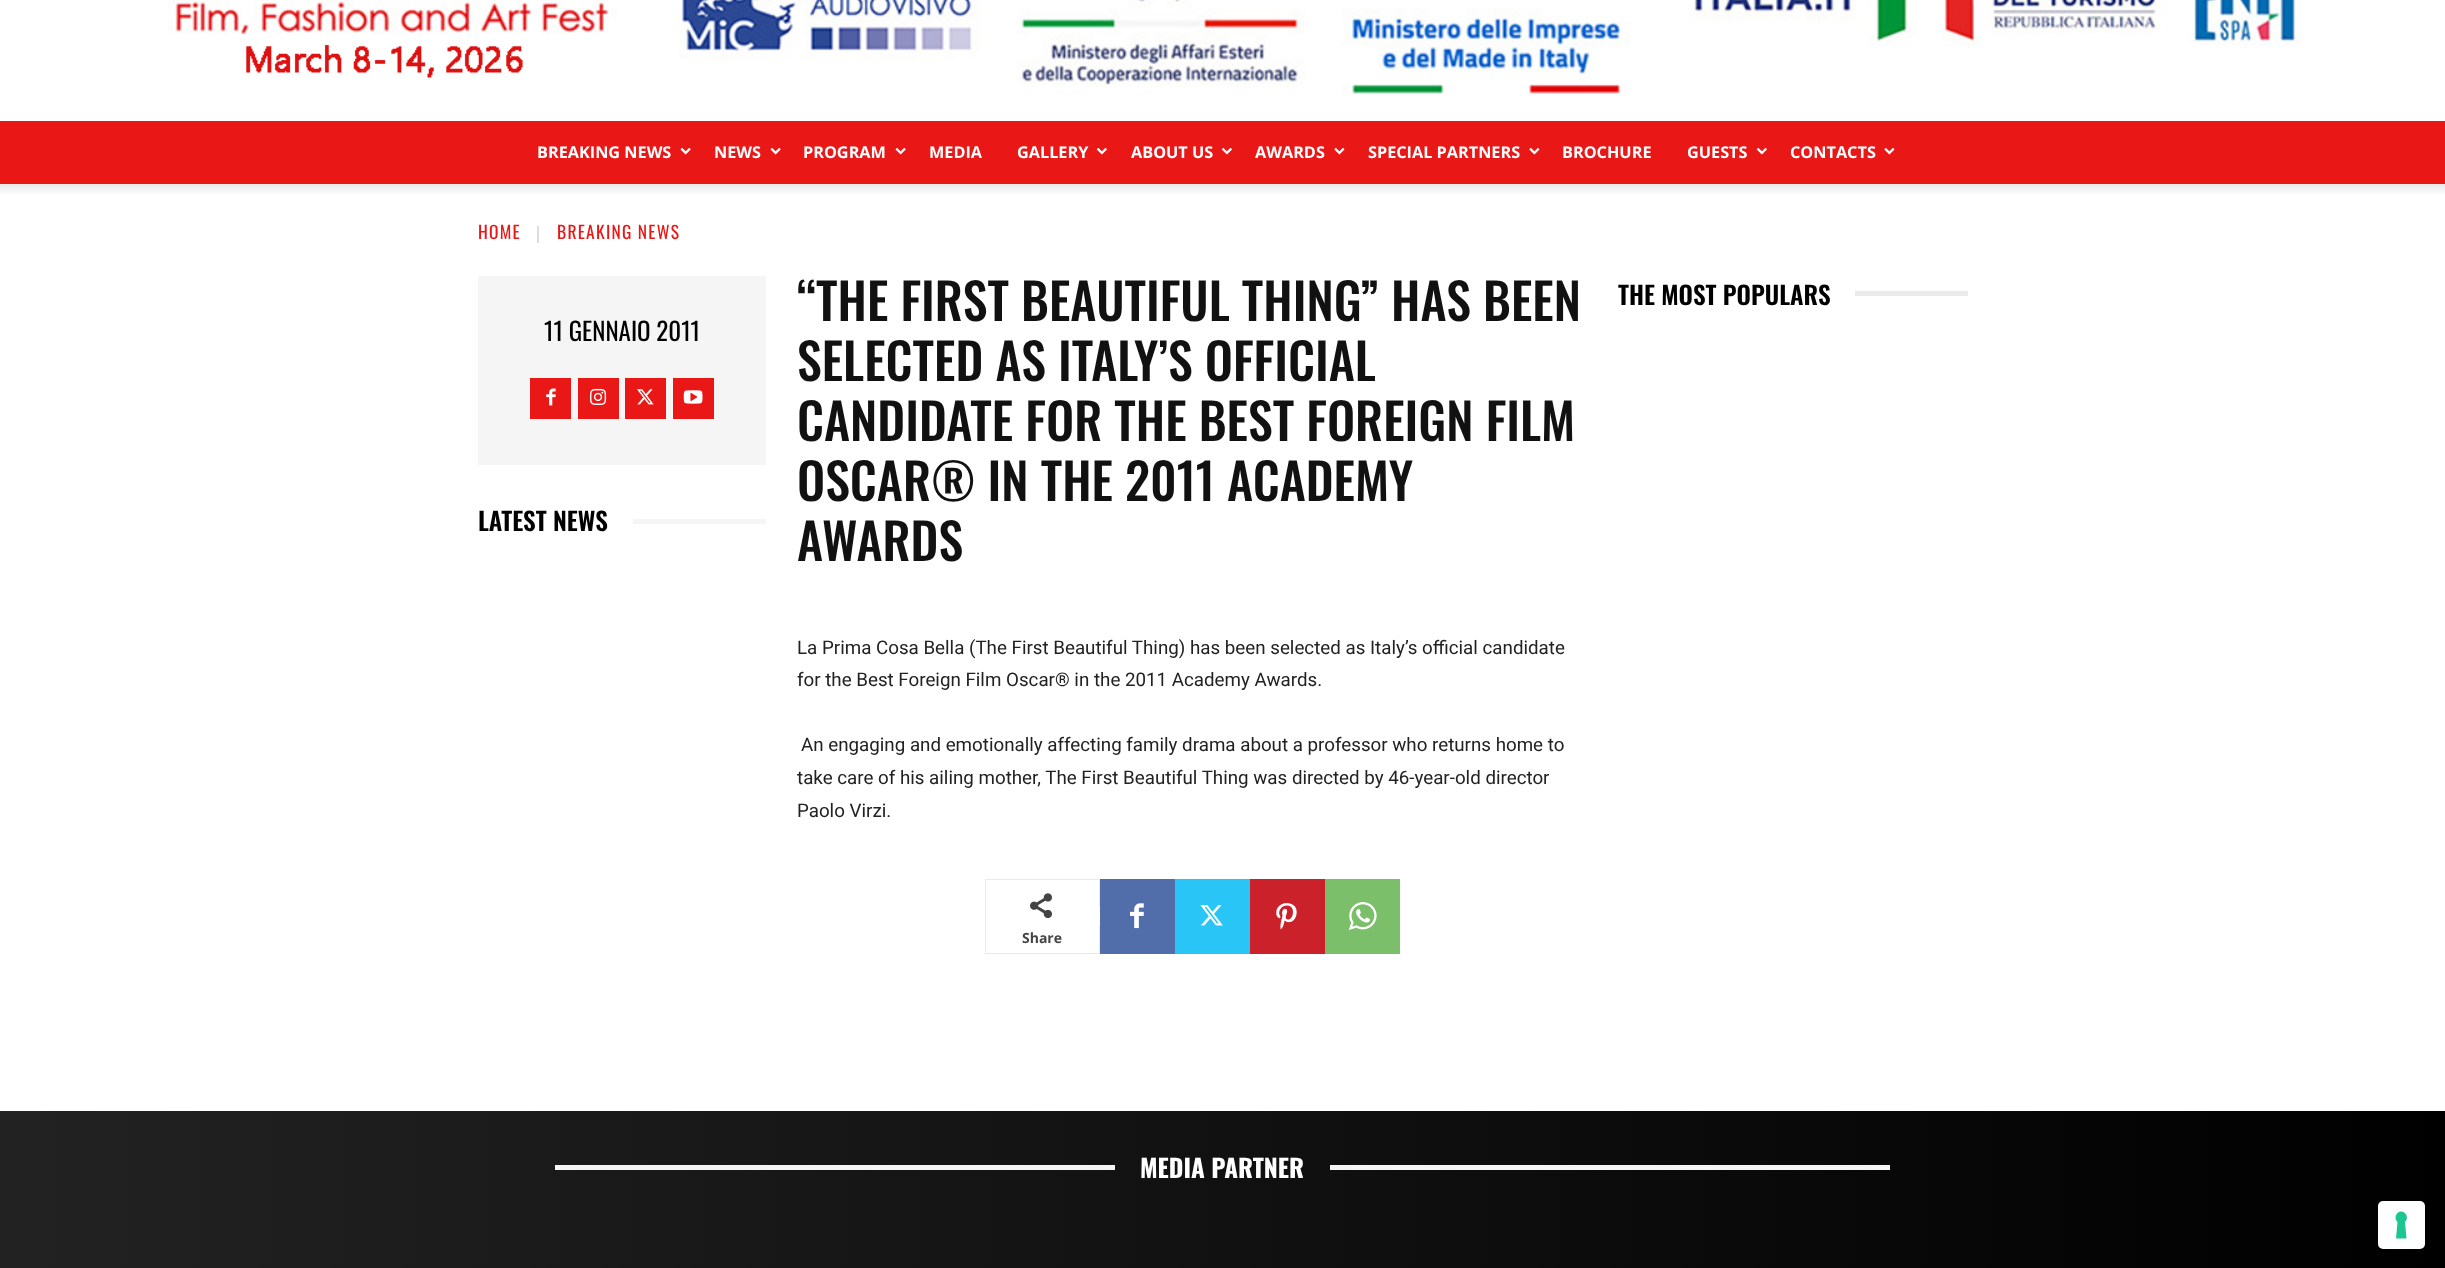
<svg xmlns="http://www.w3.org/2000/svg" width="2445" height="1268">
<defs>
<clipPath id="clip1"><rect x="1618" y="276" width="350" height="39"/></clipPath>
<linearGradient id="g1" gradientUnits="userSpaceOnUse" x1="2445" y1="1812" x2="0" y2="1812"><stop offset="0" stop-color="#000"/><stop offset="1" stop-color="#222"/></linearGradient>
</defs>
<rect width="100%" height="100%" fill="#fff"/>
<image x="167" y="0" width="2135" height="96" href="media/1.png"/>
<rect y="121" width="2445" height="63" fill="#ea1717"/>
<text x="537" y="158" style="font-family:Open Sans;font-size:16.25px;font-weight:bold;fill:#fff">BREAKING NEWS</text>
<image x="680" y="147" width="11" height="8" href="media/2.png"/>
<text x="714" y="158" style="font-family:Open Sans;font-size:16.25px;font-weight:bold;fill:#fff">NEWS</text>
<image x="770" y="147" width="11" height="8" href="media/2.png"/>
<text x="803" y="158" style="font-family:Open Sans;font-size:16.25px;font-weight:bold;fill:#fff">PROGRAM</text>
<image x="895" y="147" width="11" height="8" href="media/2.png"/>
<text x="929" y="158" style="font-family:Open Sans;font-size:16.25px;font-weight:bold;fill:#fff">MEDIA</text>
<text x="1017" y="158" style="font-family:Open Sans;font-size:16.25px;font-weight:bold;fill:#fff">GALLERY</text>
<image x="1096" y="147" width="11" height="8" href="media/3.png"/>
<text x="1131" y="158" style="font-family:Open Sans;font-size:16.25px;font-weight:bold;fill:#fff">ABOUT US</text>
<image x="1221" y="147" width="11" height="8" href="media/3.png"/>
<text x="1255" y="158" style="font-family:Open Sans;font-size:16.25px;font-weight:bold;fill:#fff">AWARDS</text>
<image x="1334" y="147" width="11" height="8" href="media/4.png"/>
<text x="1368" y="158" style="font-family:Open Sans;font-size:16.25px;font-weight:bold;fill:#fff">SPECIAL PARTNERS</text>
<image x="1529" y="147" width="11" height="8" href="media/4.png"/>
<text x="1562" y="158" style="font-family:Open Sans;font-size:16.25px;font-weight:bold;fill:#fff">BROCHURE</text>
<text x="1687" y="158" style="font-family:Open Sans;font-size:16.25px;font-weight:bold;fill:#fff">GUESTS</text>
<image x="1756" y="147" width="11" height="8" href="media/3.png"/>
<text x="1790" y="158" style="font-family:Open Sans;font-size:16.25px;font-weight:bold;fill:#fff">CONTACTS</text>
<image x="1884" y="147" width="11" height="8" href="media/4.png"/>
<image x="0" y="184" width="2445" height="10" href="media/5.png"/>
<text x="478" y="239" style="font-family:Oswald;font-size:17.5px;letter-spacing:1.25px;fill:#ea1717">HOME</text>
<rect x="537" y="226" width="2" height="17" fill="#ddd"/>
<text x="557" y="239" style="font-family:Oswald;font-size:17.5px;letter-spacing:1.25px;fill:#ea1717">BREAKING NEWS</text>
<rect x="478" y="276" width="288" height="189" fill="#f5f5f5"/>
<text x="544" y="341" style="font-family:Oswald;font-size:25px;fill:#000">11 GENNAIO 2011</text>
<rect x="530" y="378" width="41" height="41" fill="#ea1717"/>
<image x="546" y="388" width="10" height="18" href="media/6.png"/>
<rect x="578" y="378" width="41" height="41" fill="#ea1717"/>
<image x="590" y="388" width="17" height="17" href="media/7.png"/>
<rect x="625" y="378" width="41" height="41" fill="#ea1717"/>
<image x="637" y="389" width="17" height="16" href="media/8.png"/>
<rect x="673" y="378" width="41" height="41" fill="#ea1717"/>
<image x="683" y="390" width="20" height="14" href="media/9.png"/>
<text x="478" y="531" style="font-family:Oswald;font-size:25px;font-weight:600;fill:#000">LATEST NEWS</text>
<rect x="633" y="519" width="133" height="5" fill="#f5f5f5"/>
<text x="797" y="321" style="font-family:Oswald;font-size:50px;font-weight:500;fill:#111">“THE FIRST BEAUTIFUL THING” HAS BEEN</text>
<text x="797" y="381" style="font-family:Oswald;font-size:50px;font-weight:500;fill:#111">SELECTED AS ITALY’S OFFICIAL</text>
<text x="797" y="441" style="font-family:Oswald;font-size:50px;font-weight:500;fill:#111">CANDIDATE FOR THE BEST FOREIGN FILM</text>
<text x="797" y="501" style="font-family:Oswald;font-size:50px;font-weight:500;fill:#111">OSCAR® IN THE 2011 ACADEMY</text>
<text x="797" y="561" style="font-family:Oswald;font-size:50px;font-weight:500;fill:#111">AWARDS</text>
<text x="797" y="654" style="font-family:Roboto;font-size:18.75px;fill:#222">La Prima Cosa Bella (The First Beautiful Thing) has been selected as Italy’s official candidate</text>
<text x="797" y="686" style="font-family:Roboto;font-size:18.75px;fill:#222">for the Best Foreign Film Oscar® in the 2011 Academy Awards.</text>
<text x="801" y="751" style="font-family:Roboto;font-size:18.75px;fill:#222">An engaging and emotionally affecting family drama about a professor who returns home to</text>
<text x="797" y="784" style="font-family:Roboto;font-size:18.75px;fill:#222">take care of his ailing mother, The First Beautiful Thing was directed by 46-year-old director</text>
<text x="797" y="817" style="font-family:Roboto;font-size:18.75px;fill:#222">Paolo Virzi.</text>
<rect x="985.5" y="879.5" width="114" height="74" fill="none" stroke="#e9e9e9"/>
<image x="1030" y="893" width="22" height="26" href="media/10.png"/>
<path d="M1099 927.5v-22.5l13.5 11z" fill="#e9e9e9"/>
<path d="M1099 926v-20l12 10z" fill="#fff"/>
<text x="1022" y="943" style="font-family:Open Sans;font-size:14px;font-weight:bold;fill:#444">Share</text>
<rect x="1100" y="879" width="75" height="75" fill="#516eab"/>
<image x="1130" y="903" width="14" height="26" href="media/11.png"/>
<rect x="1175" y="879" width="75" height="75" fill="#29c5f6"/>
<image x="1200" y="905" width="23" height="21" href="media/12.png"/>
<rect x="1250" y="879" width="75" height="75" fill="#ca212a"/>
<image x="1276" y="903" width="21" height="27" href="media/13.png"/>
<rect x="1325" y="879" width="75" height="75" fill="#7bbf6a"/>
<image x="1348" y="902" width="29" height="28" href="media/14.png"/>
<g clip-path="url(#clip1)">
<text x="1618" y="305" style="font-family:Oswald;font-size:25px;font-weight:600;fill:#000">THE MOST POPULARS</text>
</g>
<rect x="1855" y="291" width="113" height="5" fill="#eaeaea"/>
<rect y="1111" width="2445" height="157" fill="url(#g1)"/>
<rect x="555" y="1165" width="560" height="5" fill="#f5f5f5"/>
<text x="1140" y="1178" style="font-family:Oswald;font-size:25px;font-weight:bold;fill:#fff">MEDIA PARTNER</text>
<rect x="1330" y="1165" width="560" height="5" fill="#f5f5f5"/>
<rect x="2378" y="1201" width="47" height="48" rx="5" fill="#fff"/>
<path d="M2401 1211.5c5.5 0 8 7 4 10.5l1.5 16.5h-10.5l1.5-16.5c-4-3.5-1.5-10.5 3.5-10.5z" fill="#1cc691" fill-rule="evenodd"/>
</svg>
